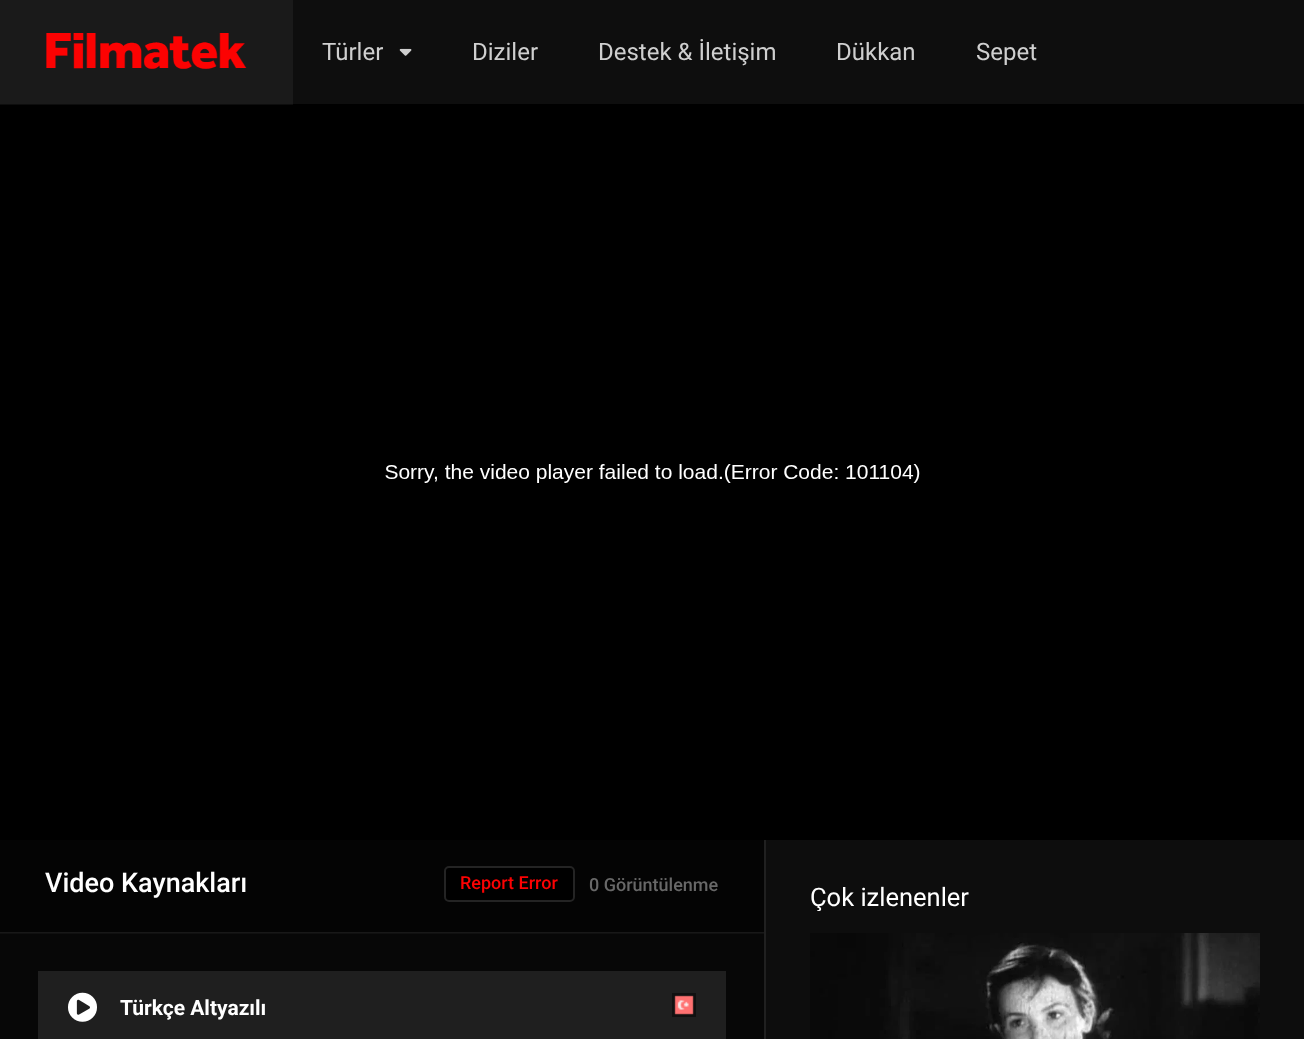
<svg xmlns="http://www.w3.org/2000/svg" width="1304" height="1039">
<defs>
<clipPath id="clip1"><rect x="810" y="885" width="450" height="26"/></clipPath>
</defs>
<rect width="100%" height="100%" fill="#000"/>
<rect x="293" width="1011" height="104" fill="#0e0e0e"/>
<rect width="293" height="104" fill="#1a1a1a"/>
<rect y="104" width="293" height="1" fill="#0d0d0d"/>
<image x="46" y="33" width="201" height="36" href="media/1.png"/>
<text x="322" y="60" style="font-family:Roboto;font-size:24px;fill:#cfcfcf">Türler</text>
<image x="399" y="48" width="13" height="8" href="media/2.png"/>
<text x="472" y="60" style="font-family:Roboto;font-size:24px;fill:#cfcfcf">Diziler</text>
<text x="598" y="60" style="font-family:Roboto;font-size:24px;fill:#cfcfcf">Destek &amp; İletişim</text>
<text x="836" y="60" style="font-family:Roboto;font-size:24px;fill:#cfcfcf">Dükkan</text>
<text x="976" y="60" style="font-family:Roboto;font-size:24px;fill:#cfcfcf">Sepet</text>
<image x="385" y="464" width="535" height="19" href="media/3.png"/>
<rect x="766" y="840" width="538" height="199" fill="#0d0d0d"/>
<rect y="934" width="764" height="105" fill="#070707"/>
<rect y="933" width="764" height="1" fill="#101010"/>
<rect x="764" y="840" width="2" height="199" fill="#202020"/>
<rect y="840" width="764" height="92" fill="#040404"/>
<rect y="932" width="764" height="1" fill="#181818"/>
<text x="45" y="892" style="font-family:Roboto;font-size:27px;font-weight:500;fill:#fff">Video Kaynakları</text>
<rect x="445" y="867" width="129" height="34" rx="4" fill="#000" stroke="#242424" stroke-width="2"/>
<text x="460" y="889" style="font-family:Roboto;font-size:18px;font-weight:500;fill:#fc0203">Report Error</text>
<text x="589" y="891" style="font-family:Roboto;font-size:18px;font-weight:500;fill:#686868">0 Görüntülenme</text>
<rect x="38" y="971" width="688" height="68" fill="#1f1f1f"/>
<image x="68" y="992" width="29" height="30" href="media/4.png"/>
<text x="120" y="1015" style="font-family:Roboto;font-size:21px;font-weight:bold;fill:#fff">Türkçe Altyazılı</text>
<rect x="673.5" y="994.5" width="21" height="21" fill="none" stroke="#101010" stroke-width="3"/>
<image x="674" y="995" width="20" height="20" href="media/5.png"/>
<g clip-path="url(#clip1)">
<text x="810" y="906" style="font-family:Roboto;font-size:25.5px;fill:#fff">Çok izlenenler</text>
</g>
<image x="810" y="933" width="450" height="106" href="media/6.png"/>
</svg>
